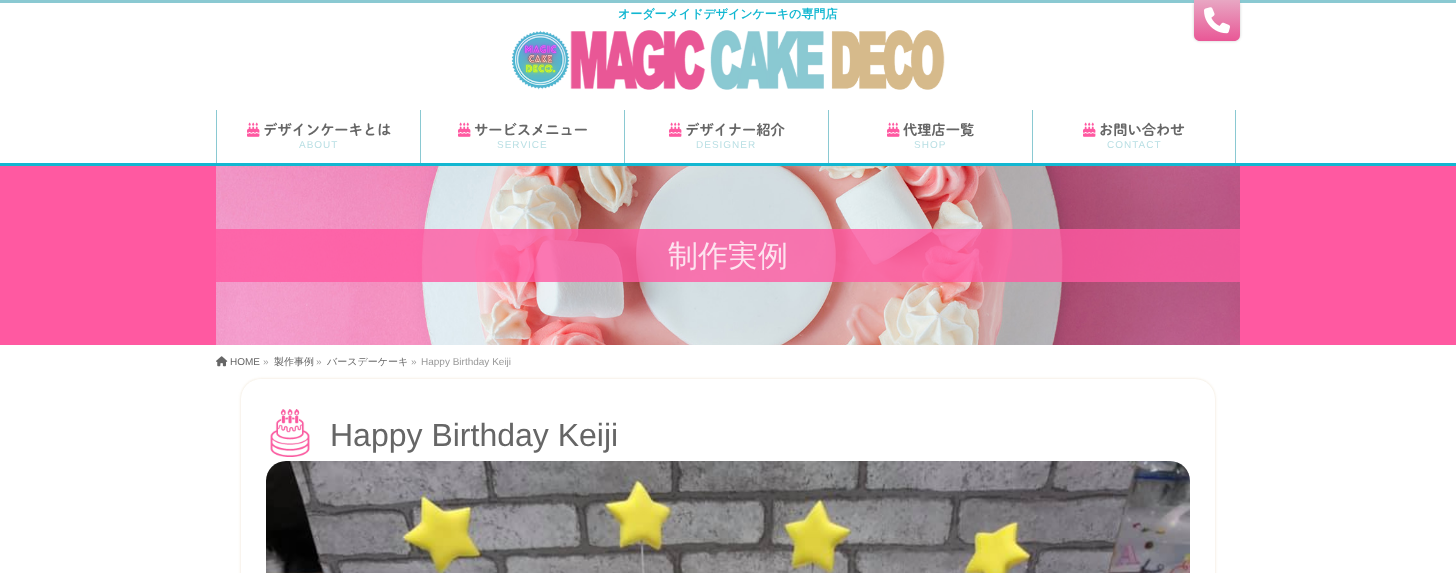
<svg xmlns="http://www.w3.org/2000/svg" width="1456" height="573">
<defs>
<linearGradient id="g1" gradientUnits="userSpaceOnUse" x1="1217" y1="0" x2="1217" y2="41"><stop offset="0" stop-color="#e8a7c3"/><stop offset="1" stop-color="#e95796"/></linearGradient>
</defs>
<rect width="100%" height="100%" fill="#fff"/>
<rect width="1456" height="3" fill="#8ac9d2"/>
<rect x="1194" width="46" height="41" rx="6" fill="#00000033" filter="blur(1.5px)"/>
<path d="M1194 0h46v35c0 3.5-2.5 6-6 6h-34c-3.5 0-6-2.5-6-6z" fill="url(#g1)"/>
<image x="1204" y="7" width="26" height="27" href="media/1.png"/>
<image x="511" y="30" width="434" height="60" href="media/2.png"/>
<text x="618" y="18" style="font-family:WenQuanYi Zen Hei;font-size:12px;font-weight:bold;fill:#12b7d1">オーダーメイドデザインケーキの専門店</text>
<rect y="163" width="1456" height="3" fill="#12b7d1"/>
<rect x="216" y="110" width="1" height="53" fill="#8ac9d2"/>
<rect x="420" y="110" width="1" height="53" fill="#8ac9d2"/>
<image x="247" y="122" width="13" height="15" href="media/3.png"/>
<text x="263" y="135" style="font-family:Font;font-size:14.25px;font-weight:600;fill:#666">デザインケーキとは</text>
<text x="299" y="148" style="font-family:Liberation Sans;font-size:10px;letter-spacing:1px;fill:#b9dfe4">ABOUT</text>
<rect x="624" y="110" width="1" height="53" fill="#8ac9d2"/>
<image x="458" y="122" width="13" height="15" href="media/3.png"/>
<text x="474" y="135" style="font-family:Font;font-size:14.25px;font-weight:600;fill:#666">サービスメニュー</text>
<text x="497" y="148" style="font-family:Liberation Sans;font-size:10px;letter-spacing:1px;fill:#b9dfe4">SERVICE</text>
<rect x="828" y="110" width="1" height="53" fill="#8ac9d2"/>
<image x="669" y="122" width="13" height="15" href="media/3.png"/>
<text x="685" y="135" style="font-family:Font;font-size:14.25px;font-weight:600;fill:#666">デザイナー紹介</text>
<text x="696" y="148" style="font-family:Liberation Sans;font-size:10px;letter-spacing:1px;fill:#b9dfe4">DESIGNER</text>
<rect x="1032" y="110" width="1" height="53" fill="#8ac9d2"/>
<image x="887" y="122" width="13" height="15" href="media/3.png"/>
<text x="903" y="135" style="font-family:Font;font-size:14.25px;font-weight:600;fill:#666">代理店一覧</text>
<text x="914" y="148" style="font-family:Liberation Sans;font-size:10px;letter-spacing:1px;fill:#b9dfe4">SHOP</text>
<rect x="1235" y="110" width="1" height="53" fill="#8ac9d2"/>
<image x="1083" y="122" width="13" height="15" href="media/3.png"/>
<text x="1099" y="135" style="font-family:Font;font-size:14.25px;font-weight:600;fill:#666">お問い合わせ</text>
<text x="1107" y="148" style="font-family:Liberation Sans;font-size:10px;letter-spacing:1px;fill:#b9dfe4">CONTACT</text>
<rect y="166" width="1456" height="179" fill="#ff59a1"/>
<image x="216" y="166" width="1024" height="179" href="media/4.png"/>
<rect x="216" y="229" width="1024" height="53" fill="#ff59a1cc"/>
<text x="668" y="266" style="font-family:WenQuanYi Zen Hei;font-size:30px;font-weight:500;fill:#fde3ef">制作実例</text>
<image x="216" y="356" width="12" height="11" href="media/5.png"/>
<text x="230" y="365" style="font-family:Liberation Sans;font-size:10px;fill:#666">HOME</text>
<text x="263" y="365" style="font-family:Liberation Sans;font-size:10px;fill:#999">»</text>
<text x="274" y="365" style="font-family:WenQuanYi Zen Hei;font-size:10px;font-weight:500;fill:#666">製作事例</text>
<text x="316" y="365" style="font-family:Liberation Sans;font-size:10px;fill:#999">»</text>
<text x="327" y="365" style="font-family:WenQuanYi Zen Hei;font-size:10px;font-weight:500;fill:#666">バースデーケーキ</text>
<text x="411" y="365" style="font-family:Liberation Sans;font-size:10px;fill:#999">»</text>
<text x="421" y="365" style="font-family:Liberation Sans;font-size:10px;fill:#999">Happy Birthday Keiji</text>
<rect x="241" y="379" width="974" height="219" rx="20" fill="#d5ba8b66" filter="blur(1.5px)"/>
<rect x="241" y="379" width="974" height="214" rx="20" fill="#fff"/>
<image x="270" y="409" width="40" height="48" href="media/6.png"/>
<text x="330" y="446" style="font-family:Liberation Sans;font-size:32px;fill:#666">Happy Birthday Keiji</text>
<image x="266" y="461" width="924" height="112" href="media/7.png"/>
</svg>
